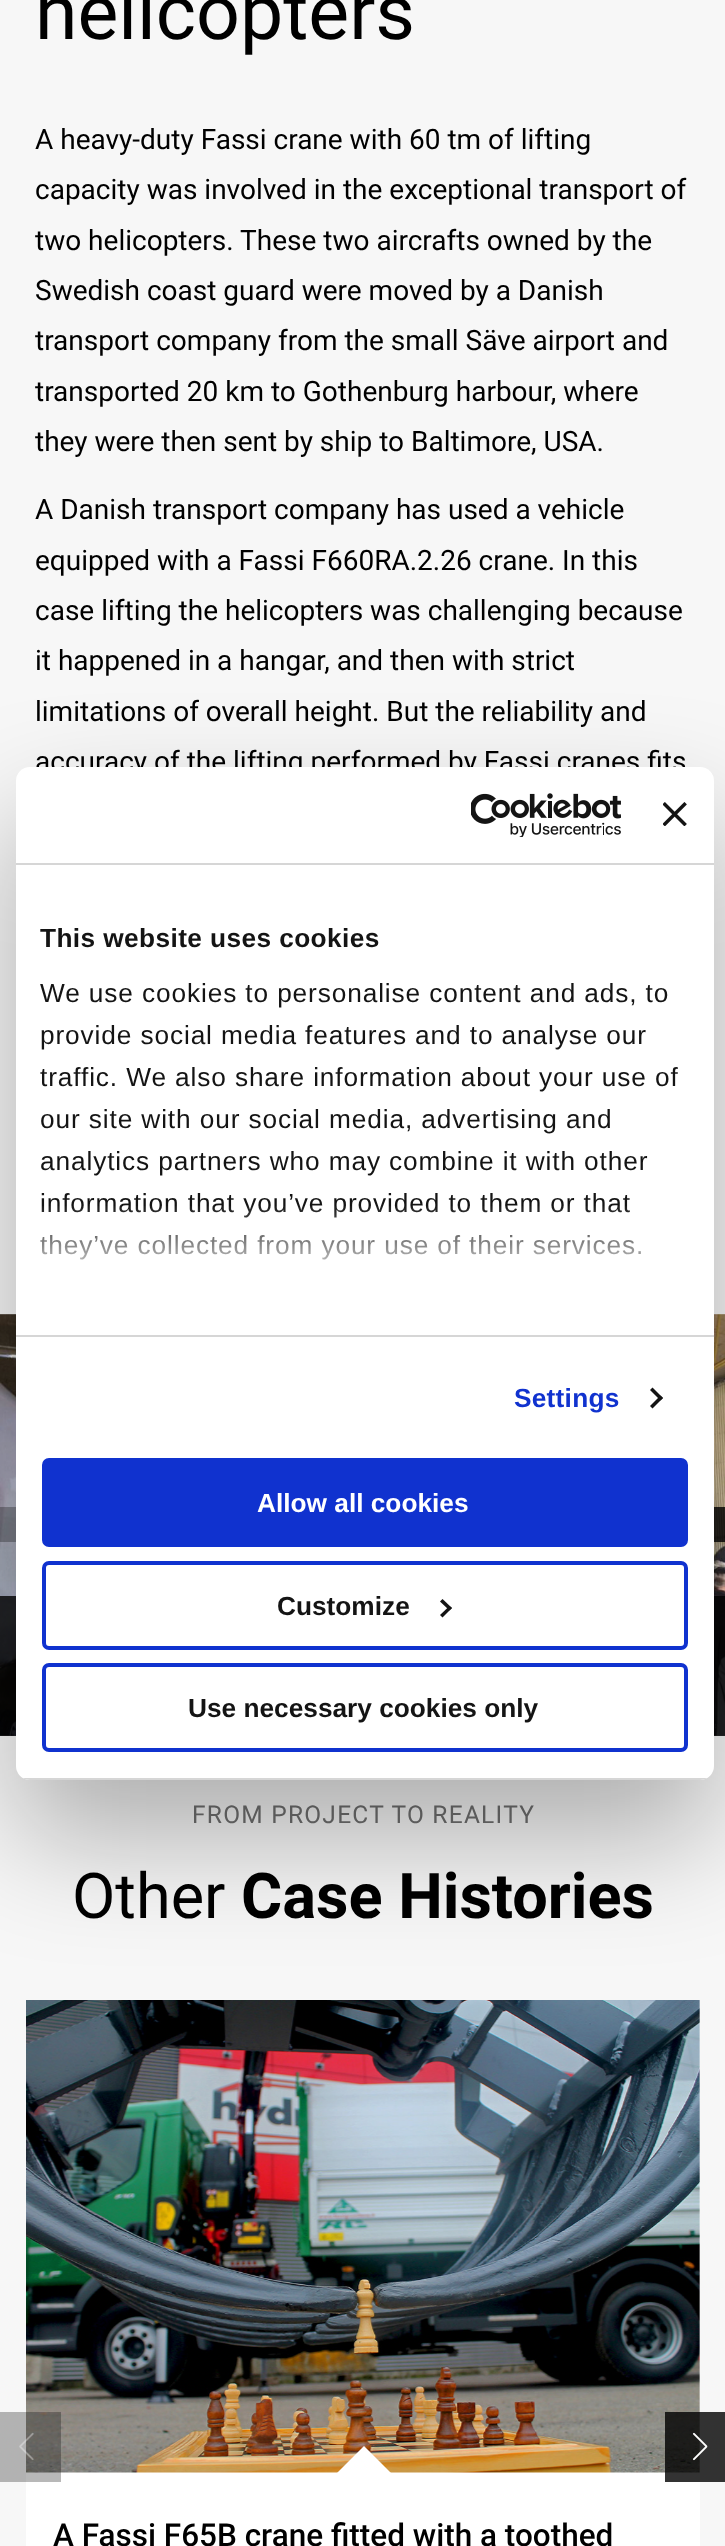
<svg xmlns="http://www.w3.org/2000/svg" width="725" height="2546">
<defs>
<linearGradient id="g1" gradientUnits="userSpaceOnUse" x1="353" y1="1336" x2="353" y2="1204"><stop offset="0" stop-color="#fff"/><stop offset="0.5" stop-color="#fff" stop-opacity="0.8"/><stop offset="1" stop-color="#fff" stop-opacity="0"/></linearGradient>
<clipPath id="clip1"><rect x="16" y="767" width="698" height="1013" rx="14"/></clipPath>
</defs>
<rect width="100%" height="100%" fill="#f7f7f7"/>
<text x="35" y="39" style="font-family:Roboto;font-size:77px;fill:#000">helicopters</text>
<text x="35" y="149" style="font-family:Roboto;font-size:28px;fill:#000">A heavy-duty Fassi crane with 60 tm of lifting</text>
<text x="35" y="199" style="font-family:Roboto;font-size:28px;fill:#000">capacity was involved in the exceptional transport of</text>
<text x="35" y="250" style="font-family:Roboto;font-size:28px;fill:#000">two helicopters. These two aircrafts owned by the</text>
<text x="35" y="300" style="font-family:Roboto;font-size:28px;fill:#000">Swedish coast guard were moved by a Danish</text>
<text x="35" y="350" style="font-family:Roboto;font-size:28px;fill:#000">transport company from the small Säve airport and</text>
<text x="35" y="401" style="font-family:Roboto;font-size:28px;fill:#000">transported 20 km to Gothenburg harbour, where</text>
<text x="35" y="451" style="font-family:Roboto;font-size:28px;fill:#000">they were then sent by ship to Baltimore, USA.</text>
<text x="35" y="519" style="font-family:Roboto;font-size:28px;fill:#000">A Danish transport company has used a vehicle</text>
<text x="35" y="570" style="font-family:Roboto;font-size:28px;fill:#000">equipped with a Fassi F660RA.2.26 crane. In this</text>
<text x="35" y="620" style="font-family:Roboto;font-size:28px;fill:#000">case lifting the helicopters was challenging because</text>
<text x="35" y="670" style="font-family:Roboto;font-size:28px;fill:#000">it happened in a hangar, and then with strict</text>
<text x="35" y="721" style="font-family:Roboto;font-size:28px;fill:#000">limitations of overall height. But the reliability and</text>
<text x="35" y="771" style="font-family:Roboto;font-size:28px;fill:#000">accuracy of the lifting performed by Fassi cranes fits</text>
<image x="0" y="1314" width="725" height="422" href="media/1.png"/>
<rect y="1507" width="16" height="35" fill="#00000047"/>
<rect x="714" y="1507" width="11" height="35" fill="#000000cc"/>
<rect y="1596" width="16" height="140" fill="#000000cc"/>
<rect x="714" y="1596" width="11" height="140" fill="#000000cc"/>
<text x="192" y="1823" style="font-family:Roboto;font-size:24.5px;letter-spacing:1.25px;fill:#707070">FROM PROJECT TO REALITY</text>
<text x="72" y="1918" style="font-family:Roboto;font-size:63px;fill:#000">Other</text>
<text x="241" y="1918" style="font-family:Roboto;font-size:63px;font-weight:bold;fill:#000">Case Histories</text>
<rect x="26" y="2000" width="674" height="546" fill="#fff"/>
<image x="26" y="2000" width="674" height="473" href="media/4.png"/>
<rect y="2412" width="61" height="70" fill="#00000047"/>
<image x="19" y="2432" width="15" height="29" href="media/2.png"/>
<rect x="665" y="2412" width="60" height="70" fill="#000000cc"/>
<image x="692" y="2432" width="16" height="29" href="media/3.png"/>
<path d="M408 2490h-88l44-44z" fill="#fff"/>
<text x="53" y="2546" style="font-family:Roboto;font-size:31.5px;font-weight:500;fill:#000">A Fassi F65B crane fitted with a toothed</text>
<rect x="16" y="823" width="698" height="1013" rx="14" fill="#0000004d" filter="blur(59.5px)"/>
<rect x="16" y="767" width="698" height="1013" rx="14" fill="#fff"/>
<rect x="16" y="863" width="698" height="2" fill="#d6d6d6"/>
<image x="471" y="793" width="150" height="44" href="media/5.png"/>
<image x="663" y="802" width="24" height="24" href="media/6.png"/>
<rect x="16" y="1335" width="698" height="2" fill="#d6d6d6"/>
<text x="40" y="947" style="font-family:Liberation Sans;font-size:26.25px;font-weight:bold;letter-spacing:0.4px;fill:#141414">This website uses cookies</text>
<text x="40" y="1002" style="font-family:Liberation Sans;font-size:26.25px;letter-spacing:0.88px;fill:#141414">We use cookies to personalise content and ads, to</text>
<text x="40" y="1044" style="font-family:Liberation Sans;font-size:26.25px;letter-spacing:0.88px;fill:#141414">provide social media features and to analyse our</text>
<text x="40" y="1086" style="font-family:Liberation Sans;font-size:26.25px;letter-spacing:0.88px;fill:#141414">traffic. We also share information about your use of</text>
<text x="40" y="1128" style="font-family:Liberation Sans;font-size:26.25px;letter-spacing:0.88px;fill:#141414">our site with our social media, advertising and</text>
<text x="40" y="1170" style="font-family:Liberation Sans;font-size:26.25px;letter-spacing:0.88px;fill:#141414">analytics partners who may combine it with other</text>
<text x="40" y="1212" style="font-family:Liberation Sans;font-size:26.25px;letter-spacing:0.88px;fill:#141414">information that you’ve provided to them or that</text>
<text x="40" y="1254" style="font-family:Liberation Sans;font-size:26.25px;letter-spacing:0.88px;fill:#141414">they’ve collected from your use of their services.</text>
<rect x="40" y="1206" width="601" height="54" fill="url(#g1)"/>
<text x="514" y="1407" style="font-family:Liberation Sans;font-size:26.25px;font-weight:bold;letter-spacing:0.25px;fill:#1032cf">Settings</text>
<path d="M652.5 1387.5l10.5 10.5l-2.5 2.5l-10.5-10.5z" fill="#141414"/>
<path d="M660.5 1395.5l2.5 2.5l-10.5 10.5l-2.5-2.5z" fill="#141414"/>
<g clip-path="url(#clip1)">
<rect x="16" y="1778" width="698" height="2" fill="#d6d6d6"/>
</g>
<rect x="44" y="1460" width="642" height="85" rx="5" fill="#1032cf" stroke="#1032cf" stroke-width="4"/>
<text x="257" y="1512" style="font-family:Liberation Sans;font-size:26.25px;font-weight:bold;fill:#fff">Allow all cookies</text>
<rect x="44" y="1563" width="642" height="85" rx="5" fill="none" stroke="#1032cf" stroke-width="4"/>
<text x="277" y="1615" style="font-family:Liberation Sans;font-size:26.25px;font-weight:bold;fill:#141414">Customize</text>
<path d="M442.5 1599l9.5 9l-2.5 2.5l-9.5-9z" fill="#141414"/>
<path d="M449.5 1606l2.5 2l-9.5 9.5l-2.5-2.5z" fill="#141414"/>
<rect x="44" y="1665" width="642" height="85" rx="5" fill="none" stroke="#1032cf" stroke-width="4"/>
<text x="188" y="1717" style="font-family:Liberation Sans;font-size:26.25px;font-weight:bold;fill:#141414">Use necessary cookies only</text>
</svg>
